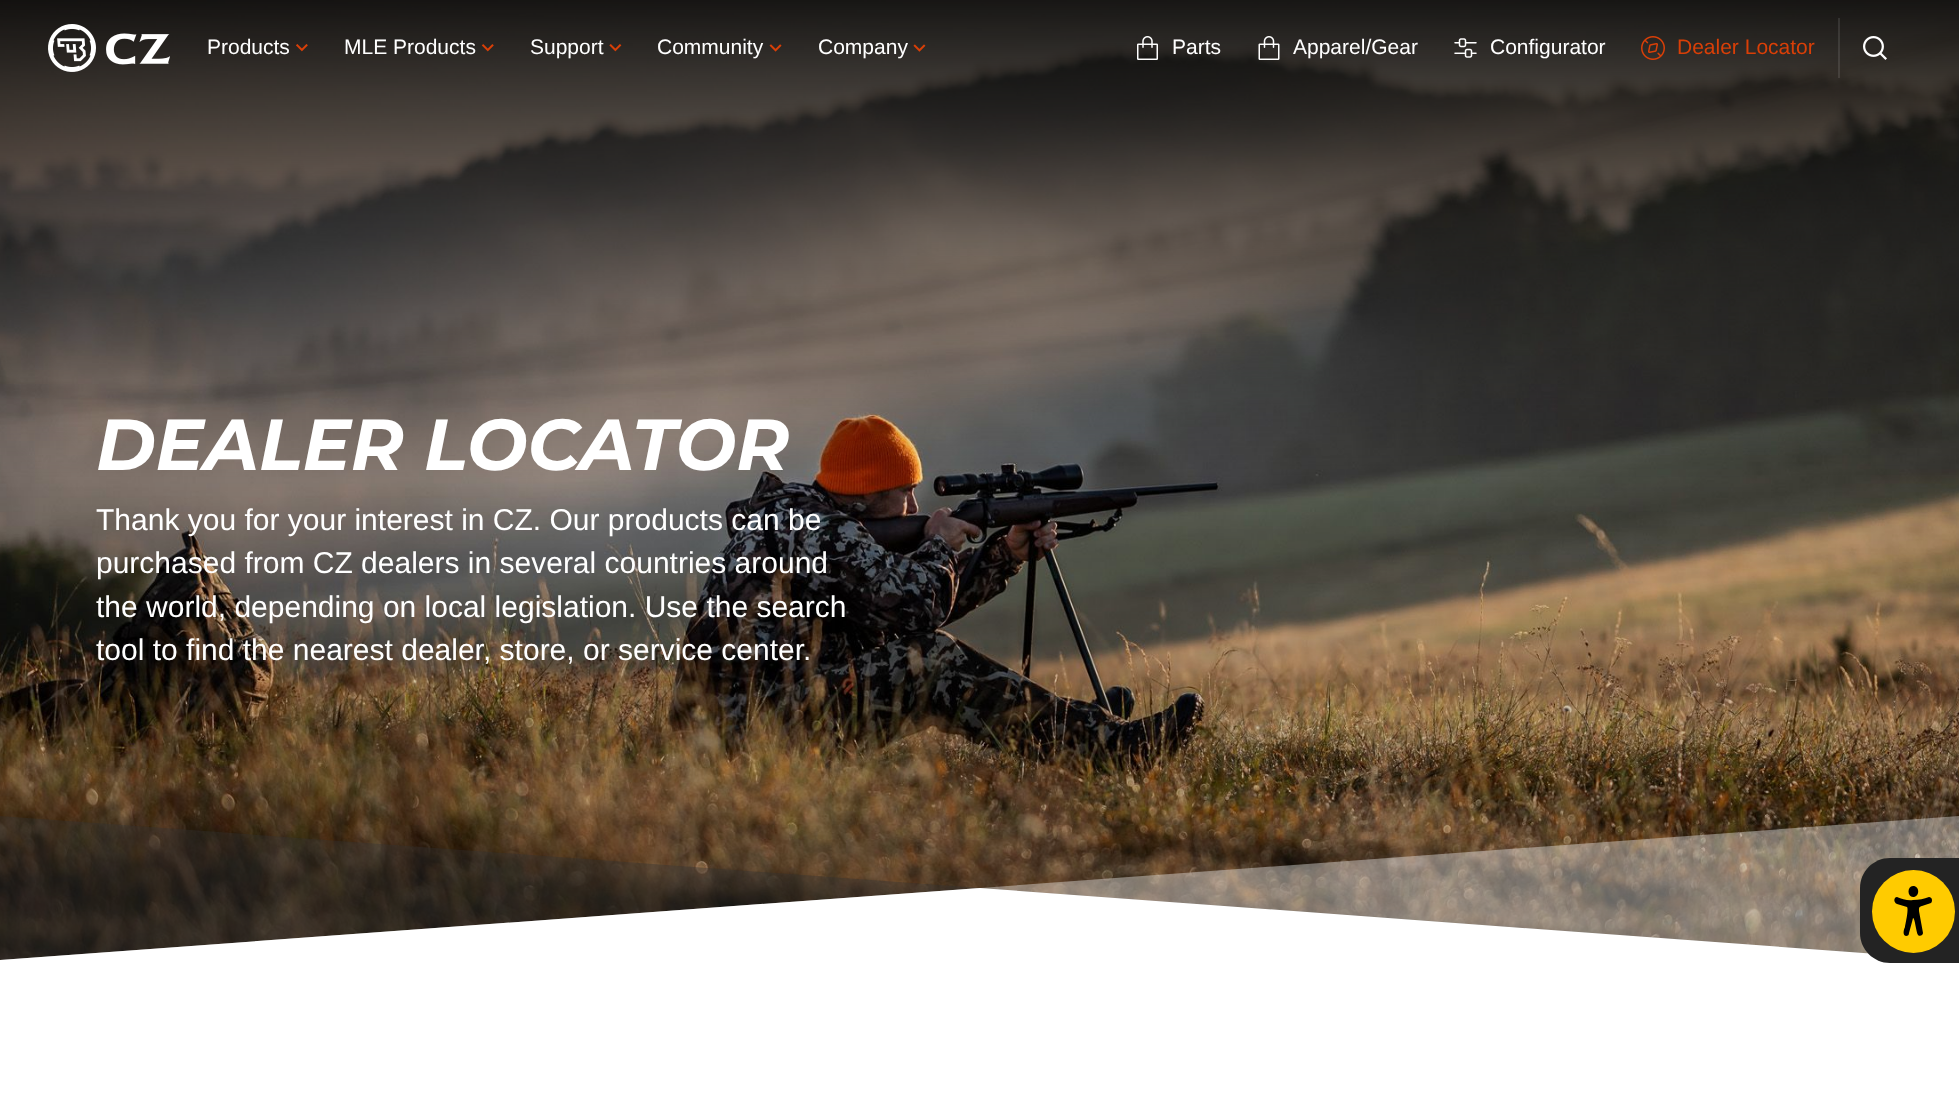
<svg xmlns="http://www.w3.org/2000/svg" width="1959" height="1095">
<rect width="100%" height="100%" fill="#fff"/>
<image x="0" y="0" width="1959" height="960" href="media/12.png"/>
<image x="48" y="24" width="122" height="48" href="media/1.png"/>
<text x="207" y="54" style="font-family:Liberation Sans;font-size:21px;fill:#fff">Products</text>
<image x="296" y="44" width="12" height="8" href="media/2.png"/>
<text x="344" y="54" style="font-family:Liberation Sans;font-size:21px;fill:#fff">MLE Products</text>
<image x="481" y="44" width="13" height="8" href="media/3.png"/>
<text x="530" y="54" style="font-family:Liberation Sans;font-size:21px;fill:#fff">Support</text>
<image x="609" y="44" width="13" height="8" href="media/4.png"/>
<text x="657" y="54" style="font-family:Liberation Sans;font-size:21px;fill:#fff">Community</text>
<image x="769" y="44" width="13" height="8" href="media/5.png"/>
<text x="818" y="54" style="font-family:Liberation Sans;font-size:21px;fill:#fff">Company</text>
<image x="913" y="44" width="13" height="8" href="media/6.png"/>
<image x="1137" y="36" width="21" height="24" href="media/7.png"/>
<text x="1172" y="54" style="font-family:Liberation Sans;font-size:21px;fill:#fff">Parts</text>
<image x="1258" y="36" width="22" height="24" href="media/8.png"/>
<text x="1293" y="54" style="font-family:Liberation Sans;font-size:21px;fill:#fff">Apparel/Gear</text>
<image x="1454" y="38" width="23" height="20" href="media/9.png"/>
<text x="1490" y="54" style="font-family:Liberation Sans;font-size:21px;fill:#fff">Configurator</text>
<image x="1641" y="36" width="24" height="24" href="media/10.png"/>
<text x="1677" y="54" style="font-family:Liberation Sans;font-size:21px;fill:#d93f07">Dealer Locator</text>
<rect x="1838" y="18" width="2" height="60" fill="#ffffff1a"/>
<image x="1863" y="36" width="24" height="24" href="media/11.png"/>
<text x="96" y="470" style="font-family:Montserrat;font-size:72px;font-weight:bold;font-style:italic;fill:#fff">DEALER LOCATOR</text>
<text x="96" y="530" style="font-family:Liberation Sans;font-size:30px;fill:#fff">Thank you for your interest in CZ. Our products can be</text>
<text x="96" y="573" style="font-family:Liberation Sans;font-size:30px;fill:#fff">purchased from CZ dealers in several countries around</text>
<text x="96" y="617" style="font-family:Liberation Sans;font-size:30px;fill:#fff">the world, depending on local legislation. Use the search</text>
<text x="96" y="660" style="font-family:Liberation Sans;font-size:30px;fill:#fff">tool to find the nearest dealer, store, or service center.</text>
<path d="M0 960v-144l1959 144z" fill="#32323266"/>
<path d="M1959 960v-144l-1959 144z" fill="#f6f6f666"/>
<path d="M0 960l980-72l979 72z" fill="#fff"/>
<path d="M1890 858h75v105h-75c-16.5 0-30-13.5-30-30v-45c0-16.5 13.5-30 30-30z" fill="#232323"/>
<circle cx="1913.5" cy="911.5" r="41.5" fill="#ffcb00"/>
<path d="M1897 897c5 2 11 4 16 3c6 0 11-1 16-3c3 0 4 4 2 6l-9 3c-3 1-3 1-3 5l4 22c0 2-3 4-5 2c-2-3-3-17-5-17l-1 4l-3 11c0 2-1 3-3 3c-4-1-2-7-1-9c0-1 4-18 2-20l-10-3c-4-2-3-7 0-7zm16-11c-6 0-6 11 0 11c7 0 7-11 0-11z" fill="#000" fill-rule="evenodd"/>
</svg>
